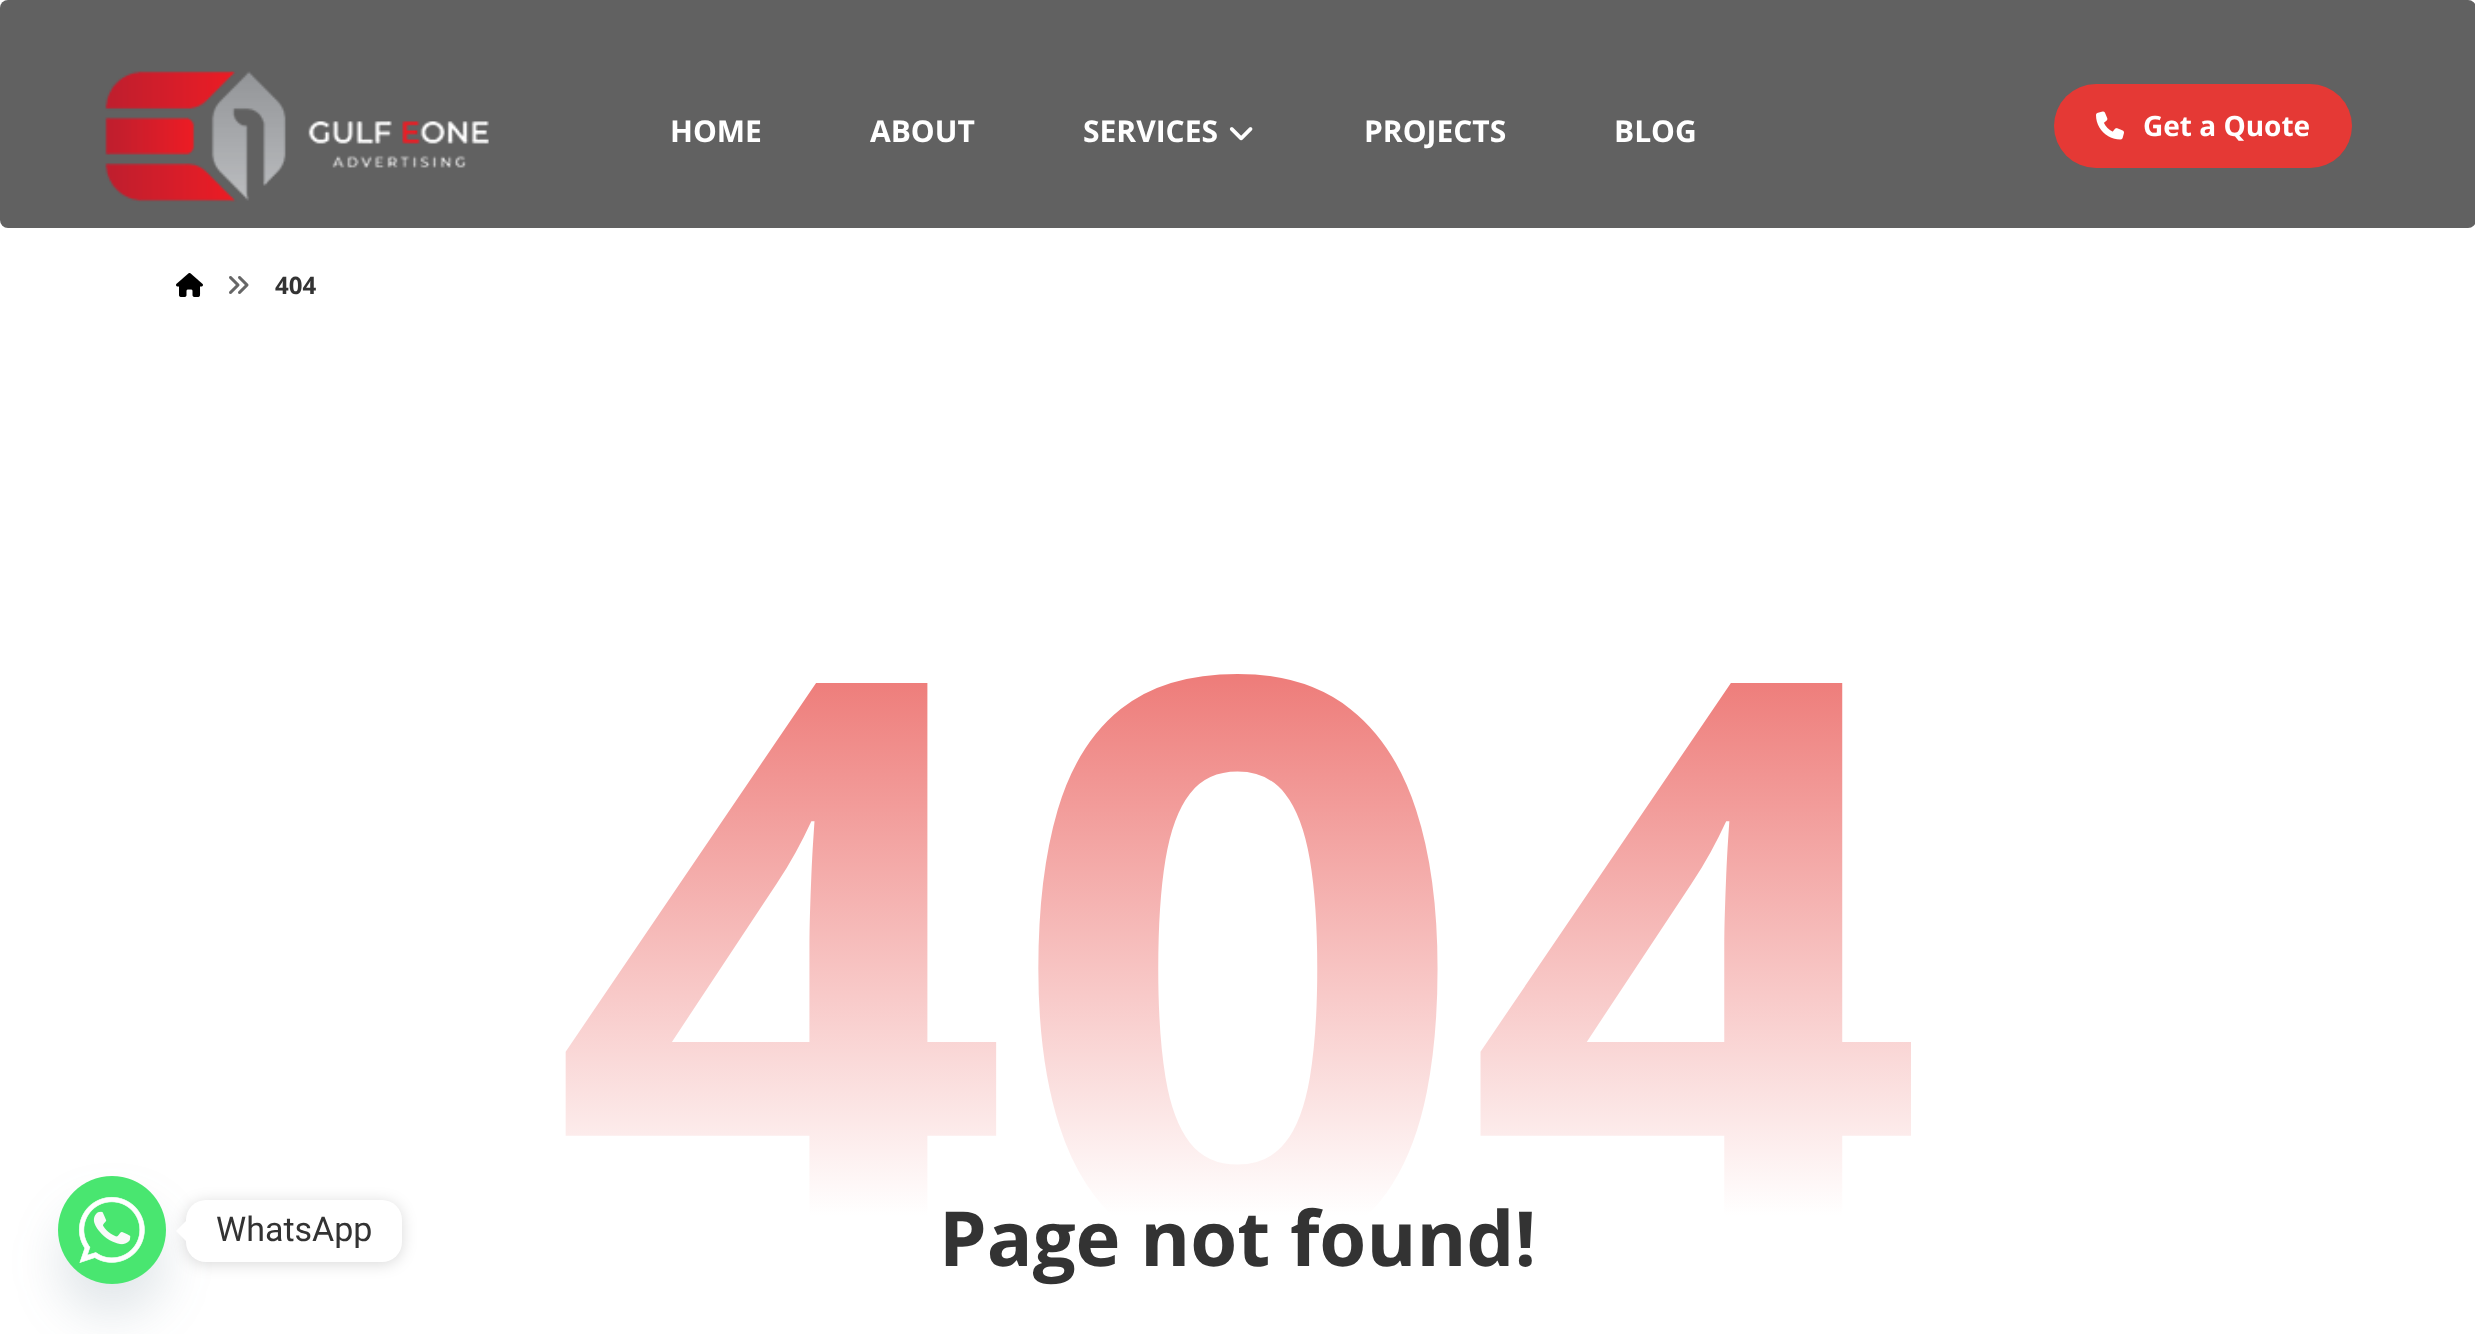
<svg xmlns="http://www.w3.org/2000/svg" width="2475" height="1334">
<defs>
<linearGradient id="g1" gradientUnits="userSpaceOnUse" x1="1238" y1="398" x2="1238" y2="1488"><stop offset="0" stop-color="#e53935"/><stop offset="0.75" stop-color="#fff"/></linearGradient>
</defs>
<rect width="100%" height="100%" fill="#fff"/>
<rect width="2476" height="228" rx="8" fill="#616161"/>
<image x="105" y="71" width="384" height="131" href="media/1.png"/>
<text x="670" y="142" style="font-family:Open Sans;font-size:30px;font-weight:bold;fill:#fff">HOME</text>
<text x="870" y="142" style="font-family:Open Sans;font-size:30px;font-weight:bold;fill:#fff">ABOUT</text>
<text x="1083" y="142" style="font-family:Open Sans;font-size:30px;font-weight:bold;fill:#fff">SERVICES</text>
<image x="1229" y="127" width="24" height="14" href="media/2.png"/>
<text x="1364" y="142" style="font-family:Open Sans;font-size:30px;font-weight:bold;fill:#fff">PROJECTS</text>
<text x="1614" y="142" style="font-family:Open Sans;font-size:30px;font-weight:bold;fill:#fff">BLOG</text>
<rect x="2054" y="84" width="298" height="84" rx="42" fill="#e53935"/>
<image x="2096" y="111" width="28" height="29" href="media/3.png"/>
<text x="2143" y="136" style="font-family:Open Sans;font-size:28px;font-weight:bold;fill:#fff">Get a Quote</text>
<image x="176" y="273" width="27" height="24" href="media/4.png"/>
<image x="229" y="276" width="20" height="18" href="media/5.png"/>
<text x="275" y="294" style="font-family:Open Sans;font-size:24px;font-weight:bold;fill:#333">404</text>
<text x="552" y="1254" style="font-family:Open Sans;font-size:800px;font-weight:bold;fill:url(#g1)">404</text>
<text x="939" y="1266" style="font-family:Open Sans;font-size:76px;font-weight:bold;fill:#333">Page not found!</text>
<rect x="58" y="1208" width="108" height="108" rx="54" fill="#49687e29" filter="blur(24px)"/>
<image x="58" y="1176" width="108" height="108" href="media/6.png"/>
<rect x="186" y="1202" width="216" height="62" rx="20" fill="#00000026" filter="blur(7.5px)"/>
<rect x="186" y="1200" width="216" height="62" rx="20" fill="#fff"/>
<path d="M186 1221v20l-10-10z" fill="#fff"/>
<text x="216" y="1241" style="font-family:Roboto;font-size:34px;fill:#333">WhatsApp</text>
</svg>
